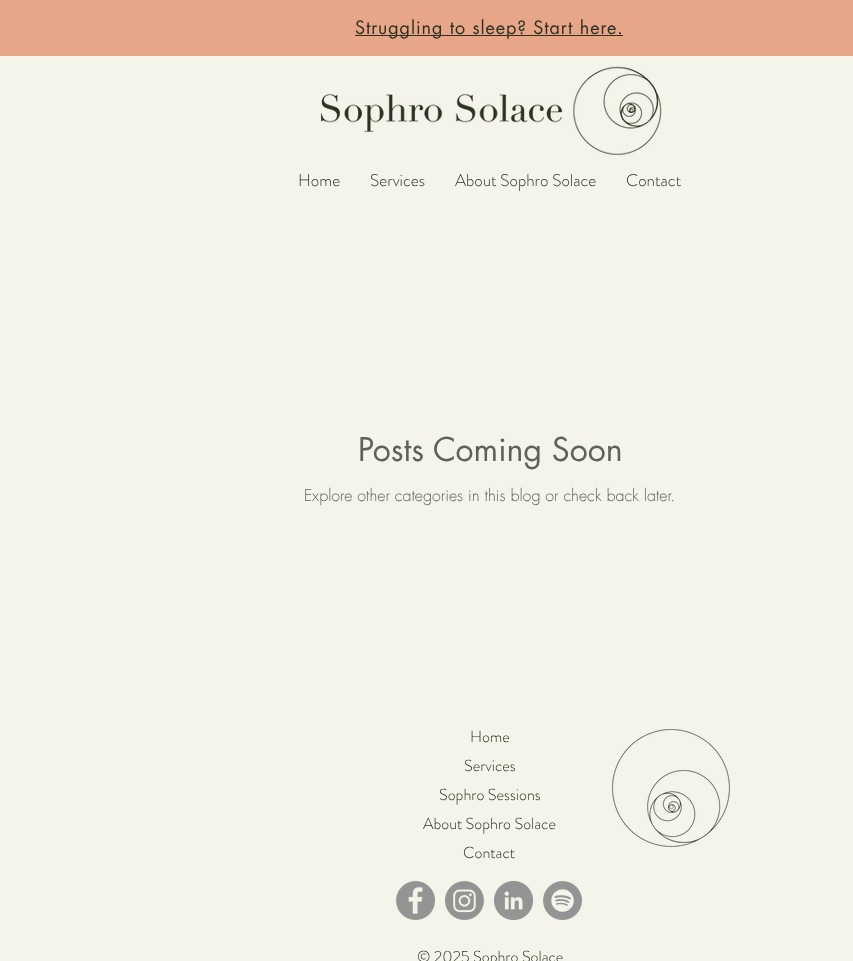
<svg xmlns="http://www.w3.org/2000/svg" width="853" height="961">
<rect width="100%" height="100%" fill="#f4f4eb"/>
<rect width="853" height="56" fill="#e7a688"/>
<rect x="355" y="35" width="268" height="1" fill="#2f3021"/>
<text x="355" y="34" style="font-family:futura;font-size:18px;letter-spacing:0.9px;fill:#2f3021">Struggling to sleep? Start here.</text>
<image x="320" y="65" width="342" height="92" href="media/1.png"/>
<text x="298" y="186" style="font-family:'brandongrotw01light';font-size:17px;font-weight:300;fill:#2f3021">Home</text>
<text x="370" y="186" style="font-family:'brandongrotw01light';font-size:17px;font-weight:300;fill:#2f3021">Services</text>
<text x="455" y="186" style="font-family:'brandongrotw01light';font-size:17px;font-weight:300;fill:#2f3021">About Sophro Solace</text>
<text x="626" y="186" style="font-family:'brandongrotw01light';font-size:17px;font-weight:300;fill:#2f3021">Contact</text>
<text x="358" y="461" style="font-family:futura;font-size:32px;fill:#5d6355">Posts Coming Soon</text>
<text x="304" y="501" style="font-family:futura;font-size:16px;font-weight:300;fill:#5d6355">Explore other categories in this blog or check back later.</text>
<text x="470" y="742" style="font-family:'brandongrotw01light';font-size:16px;font-weight:300;fill:#2f3021">Home</text>
<text x="464" y="771" style="font-family:'brandongrotw01light';font-size:16px;font-weight:300;fill:#2f3021">Services</text>
<text x="439" y="800" style="font-family:'brandongrotw01light';font-size:16px;font-weight:300;fill:#2f3021">Sophro Sessions</text>
<text x="423" y="829" style="font-family:'brandongrotw01light';font-size:16px;font-weight:300;fill:#2f3021">About Sophro Solace</text>
<text x="463" y="858" style="font-family:'brandongrotw01light';font-size:16px;font-weight:300;fill:#2f3021">Contact</text>
<image x="612" y="729" width="118" height="118" href="media/2.png"/>
<image x="396" y="881" width="39" height="39" href="media/3.png"/>
<image x="445" y="881" width="39" height="39" href="media/4.png"/>
<image x="494" y="881" width="39" height="39" href="media/5.png"/>
<image x="543" y="881" width="39" height="39" href="media/6.png"/>
<text x="417" y="962" style="font-family:'brandongrotw01light';font-size:16px;font-weight:300;fill:#2f3021">© 2025 Sophro Solace</text>
</svg>
